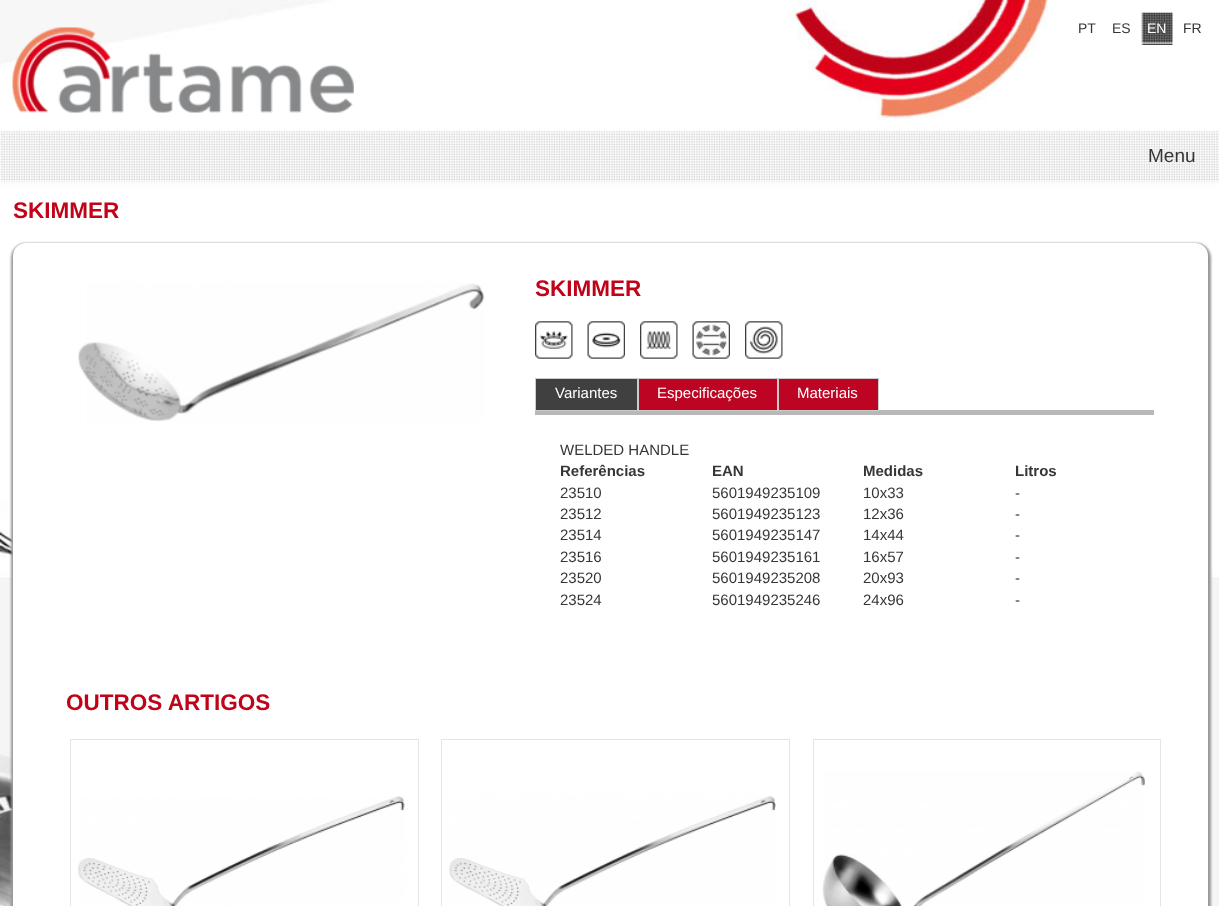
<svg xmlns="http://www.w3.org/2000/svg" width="1219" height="906">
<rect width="100%" height="100%" fill="#fff"/>
<image x="0" y="0" width="1219" height="906" href="media/1.png"/>
<image x="12" y="27" width="342" height="86" href="media/2.png"/>
<text x="1078" y="33" style="font-family:Liberation Sans;font-size:14px;fill:#363636">PT</text>
<text x="1112" y="33" style="font-family:Liberation Sans;font-size:14px;fill:#363636">ES</text>
<image x="1141" y="12" width="32" height="33" href="media/3.png"/>
<text x="1147" y="33" style="font-family:Liberation Sans;font-size:14px;fill:#fff">EN</text>
<text x="1183" y="33" style="font-family:Liberation Sans;font-size:14px;fill:#363636">FR</text>
<text x="1148" y="162" style="font-family:Liberation Sans;font-size:19px;fill:#363636">Menu</text>
<text x="13" y="218" style="font-family:Liberation Sans;font-size:22.5px;font-weight:bold;fill:#c00319">SKIMMER</text>
<rect x="11" y="243" width="1200" height="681" rx="15" fill="#999" filter="blur(1px)"/>
<rect x="13" y="243" width="1195" height="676" rx="13" fill="#fff"/>
<image x="78" y="283" width="407" height="139" href="media/4.png"/>
<text x="535" y="296" style="font-family:Liberation Sans;font-size:22.5px;font-weight:bold;fill:#c00319">SKIMMER</text>
<image x="535" y="321" width="38" height="38" href="media/5.png"/>
<image x="587" y="321" width="38" height="38" href="media/6.png"/>
<image x="640" y="321" width="38" height="38" href="media/7.png"/>
<image x="692" y="321" width="38" height="38" href="media/8.png"/>
<image x="745" y="321" width="38" height="38" href="media/9.png"/>
<rect x="535" y="410" width="619" height="5" fill="#b8b8b8"/>
<rect x="535.5" y="378.5" width="102" height="32" fill="#404040" stroke="#ccc"/>
<text x="555" y="398" style="font-family:Liberation Sans;font-size:15px;fill:#fff">Variantes</text>
<rect x="638.5" y="378.5" width="139" height="32" fill="#bd0523" stroke="#ccc"/>
<text x="657" y="398" style="font-family:Liberation Sans;font-size:15px;fill:#fff">Especificações</text>
<rect x="778.5" y="378.5" width="100" height="32" fill="#bd0523" stroke="#ccc"/>
<text x="797" y="398" style="font-family:Liberation Sans;font-size:15px;fill:#fff">Materiais</text>
<text x="560" y="455" style="font-family:Liberation Sans;font-size:15px;fill:#363636">WELDED HANDLE</text>
<text x="560" y="476" style="font-family:Liberation Sans;font-size:15px;font-weight:bold;fill:#363636">Referências</text>
<text x="560" y="498" style="font-family:Liberation Sans;font-size:15px;fill:#363636">23510</text>
<text x="712" y="476" style="font-family:Liberation Sans;font-size:15px;font-weight:bold;fill:#363636">EAN</text>
<text x="712" y="498" style="font-family:Liberation Sans;font-size:15px;fill:#363636">5601949235109</text>
<text x="863" y="476" style="font-family:Liberation Sans;font-size:15px;font-weight:bold;fill:#363636">Medidas</text>
<text x="863" y="498" style="font-family:Liberation Sans;font-size:15px;fill:#363636">10x33</text>
<text x="1015" y="476" style="font-family:Liberation Sans;font-size:15px;font-weight:bold;fill:#363636">Litros</text>
<text x="1015" y="498" style="font-family:Liberation Sans;font-size:15px;fill:#363636">-</text>
<text x="560" y="519" style="font-family:Liberation Sans;font-size:15px;fill:#363636">23512</text>
<text x="712" y="519" style="font-family:Liberation Sans;font-size:15px;fill:#363636">5601949235123</text>
<text x="863" y="519" style="font-family:Liberation Sans;font-size:15px;fill:#363636">12x36</text>
<text x="1015" y="519" style="font-family:Liberation Sans;font-size:15px;fill:#363636">-</text>
<text x="560" y="540" style="font-family:Liberation Sans;font-size:15px;fill:#363636">23514</text>
<text x="712" y="540" style="font-family:Liberation Sans;font-size:15px;fill:#363636">5601949235147</text>
<text x="863" y="540" style="font-family:Liberation Sans;font-size:15px;fill:#363636">14x44</text>
<text x="1015" y="540" style="font-family:Liberation Sans;font-size:15px;fill:#363636">-</text>
<text x="560" y="562" style="font-family:Liberation Sans;font-size:15px;fill:#363636">23516</text>
<text x="712" y="562" style="font-family:Liberation Sans;font-size:15px;fill:#363636">5601949235161</text>
<text x="863" y="562" style="font-family:Liberation Sans;font-size:15px;fill:#363636">16x57</text>
<text x="1015" y="562" style="font-family:Liberation Sans;font-size:15px;fill:#363636">-</text>
<text x="560" y="583" style="font-family:Liberation Sans;font-size:15px;fill:#363636">23520</text>
<text x="712" y="583" style="font-family:Liberation Sans;font-size:15px;fill:#363636">5601949235208</text>
<text x="863" y="583" style="font-family:Liberation Sans;font-size:15px;fill:#363636">20x93</text>
<text x="1015" y="583" style="font-family:Liberation Sans;font-size:15px;fill:#363636">-</text>
<text x="560" y="605" style="font-family:Liberation Sans;font-size:15px;fill:#363636">23524</text>
<text x="712" y="605" style="font-family:Liberation Sans;font-size:15px;fill:#363636">5601949235246</text>
<text x="863" y="605" style="font-family:Liberation Sans;font-size:15px;fill:#363636">24x96</text>
<text x="1015" y="605" style="font-family:Liberation Sans;font-size:15px;fill:#363636">-</text>
<text x="66" y="710" style="font-family:Liberation Sans;font-size:22.5px;font-weight:bold;fill:#c00319">OUTROS ARTIGOS</text>
<rect x="70.5" y="739.5" width="348" height="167" fill="none" stroke="#e5e5e5"/>
<image x="78" y="796" width="327" height="110" href="media/10.png"/>
<rect x="441.5" y="739.5" width="348" height="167" fill="none" stroke="#e5e5e5"/>
<image x="449" y="795" width="327" height="111" href="media/11.png"/>
<rect x="813.5" y="739.5" width="347" height="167" fill="none" stroke="#e5e5e5"/>
<image x="822" y="771" width="323" height="135" href="media/12.png"/>
</svg>
